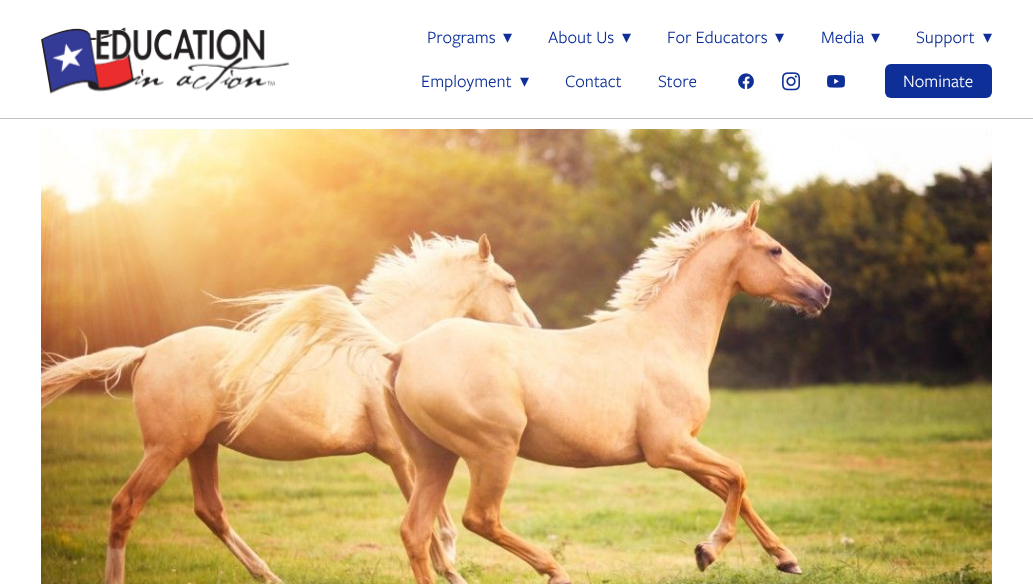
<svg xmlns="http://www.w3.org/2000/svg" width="1033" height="584">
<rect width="100%" height="100%" fill="#fff"/>
<rect y="118" width="1033" height="1" fill="#c2c2c2"/>
<image x="41" y="27" width="248" height="67" href="media/1.png"/>
<text x="427" y="43" style="font-family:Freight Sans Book;font-size:18px;fill:#0d2f97">Programs</text>
<text x="503" y="43" style="font-family:DejaVu Sans;font-size:18px;fill:#0d2f97">▾</text>
<text x="548" y="43" style="font-family:Freight Sans Book;font-size:18px;fill:#0d2f97">About Us</text>
<text x="622" y="43" style="font-family:DejaVu Sans;font-size:18px;fill:#0d2f97">▾</text>
<text x="667" y="43" style="font-family:Freight Sans Book;font-size:18px;fill:#0d2f97">For Educators</text>
<text x="775" y="43" style="font-family:DejaVu Sans;font-size:18px;fill:#0d2f97">▾</text>
<text x="821" y="43" style="font-family:Freight Sans Book;font-size:18px;fill:#0d2f97">Media</text>
<text x="871" y="43" style="font-family:DejaVu Sans;font-size:18px;fill:#0d2f97">▾</text>
<text x="916" y="43" style="font-family:Freight Sans Book;font-size:18px;fill:#0d2f97">Support</text>
<text x="983" y="43" style="font-family:DejaVu Sans;font-size:18px;fill:#0d2f97">▾</text>
<text x="421" y="87" style="font-family:Freight Sans Book;font-size:18px;fill:#0d2f97">Employment</text>
<text x="520" y="87" style="font-family:DejaVu Sans;font-size:18px;fill:#0d2f97">▾</text>
<text x="565" y="87" style="font-family:Freight Sans Book;font-size:18px;fill:#0d2f97">Contact</text>
<text x="658" y="87" style="font-family:Freight Sans Book;font-size:18px;fill:#0d2f97">Store</text>
<image x="738" y="73" width="16" height="16" href="media/2.png"/>
<image x="782" y="72" width="19" height="19" href="media/3.png"/>
<image x="827" y="75" width="18" height="13" href="media/4.png"/>
<rect x="885" y="64" width="107" height="34" rx="6" fill="#0d2f97"/>
<text x="903" y="87" style="font-family:Freight Sans Book;font-size:18px;fill:#fff">Nominate</text>
<image x="41" y="129" width="951" height="455" href="media/5.png"/>
</svg>
